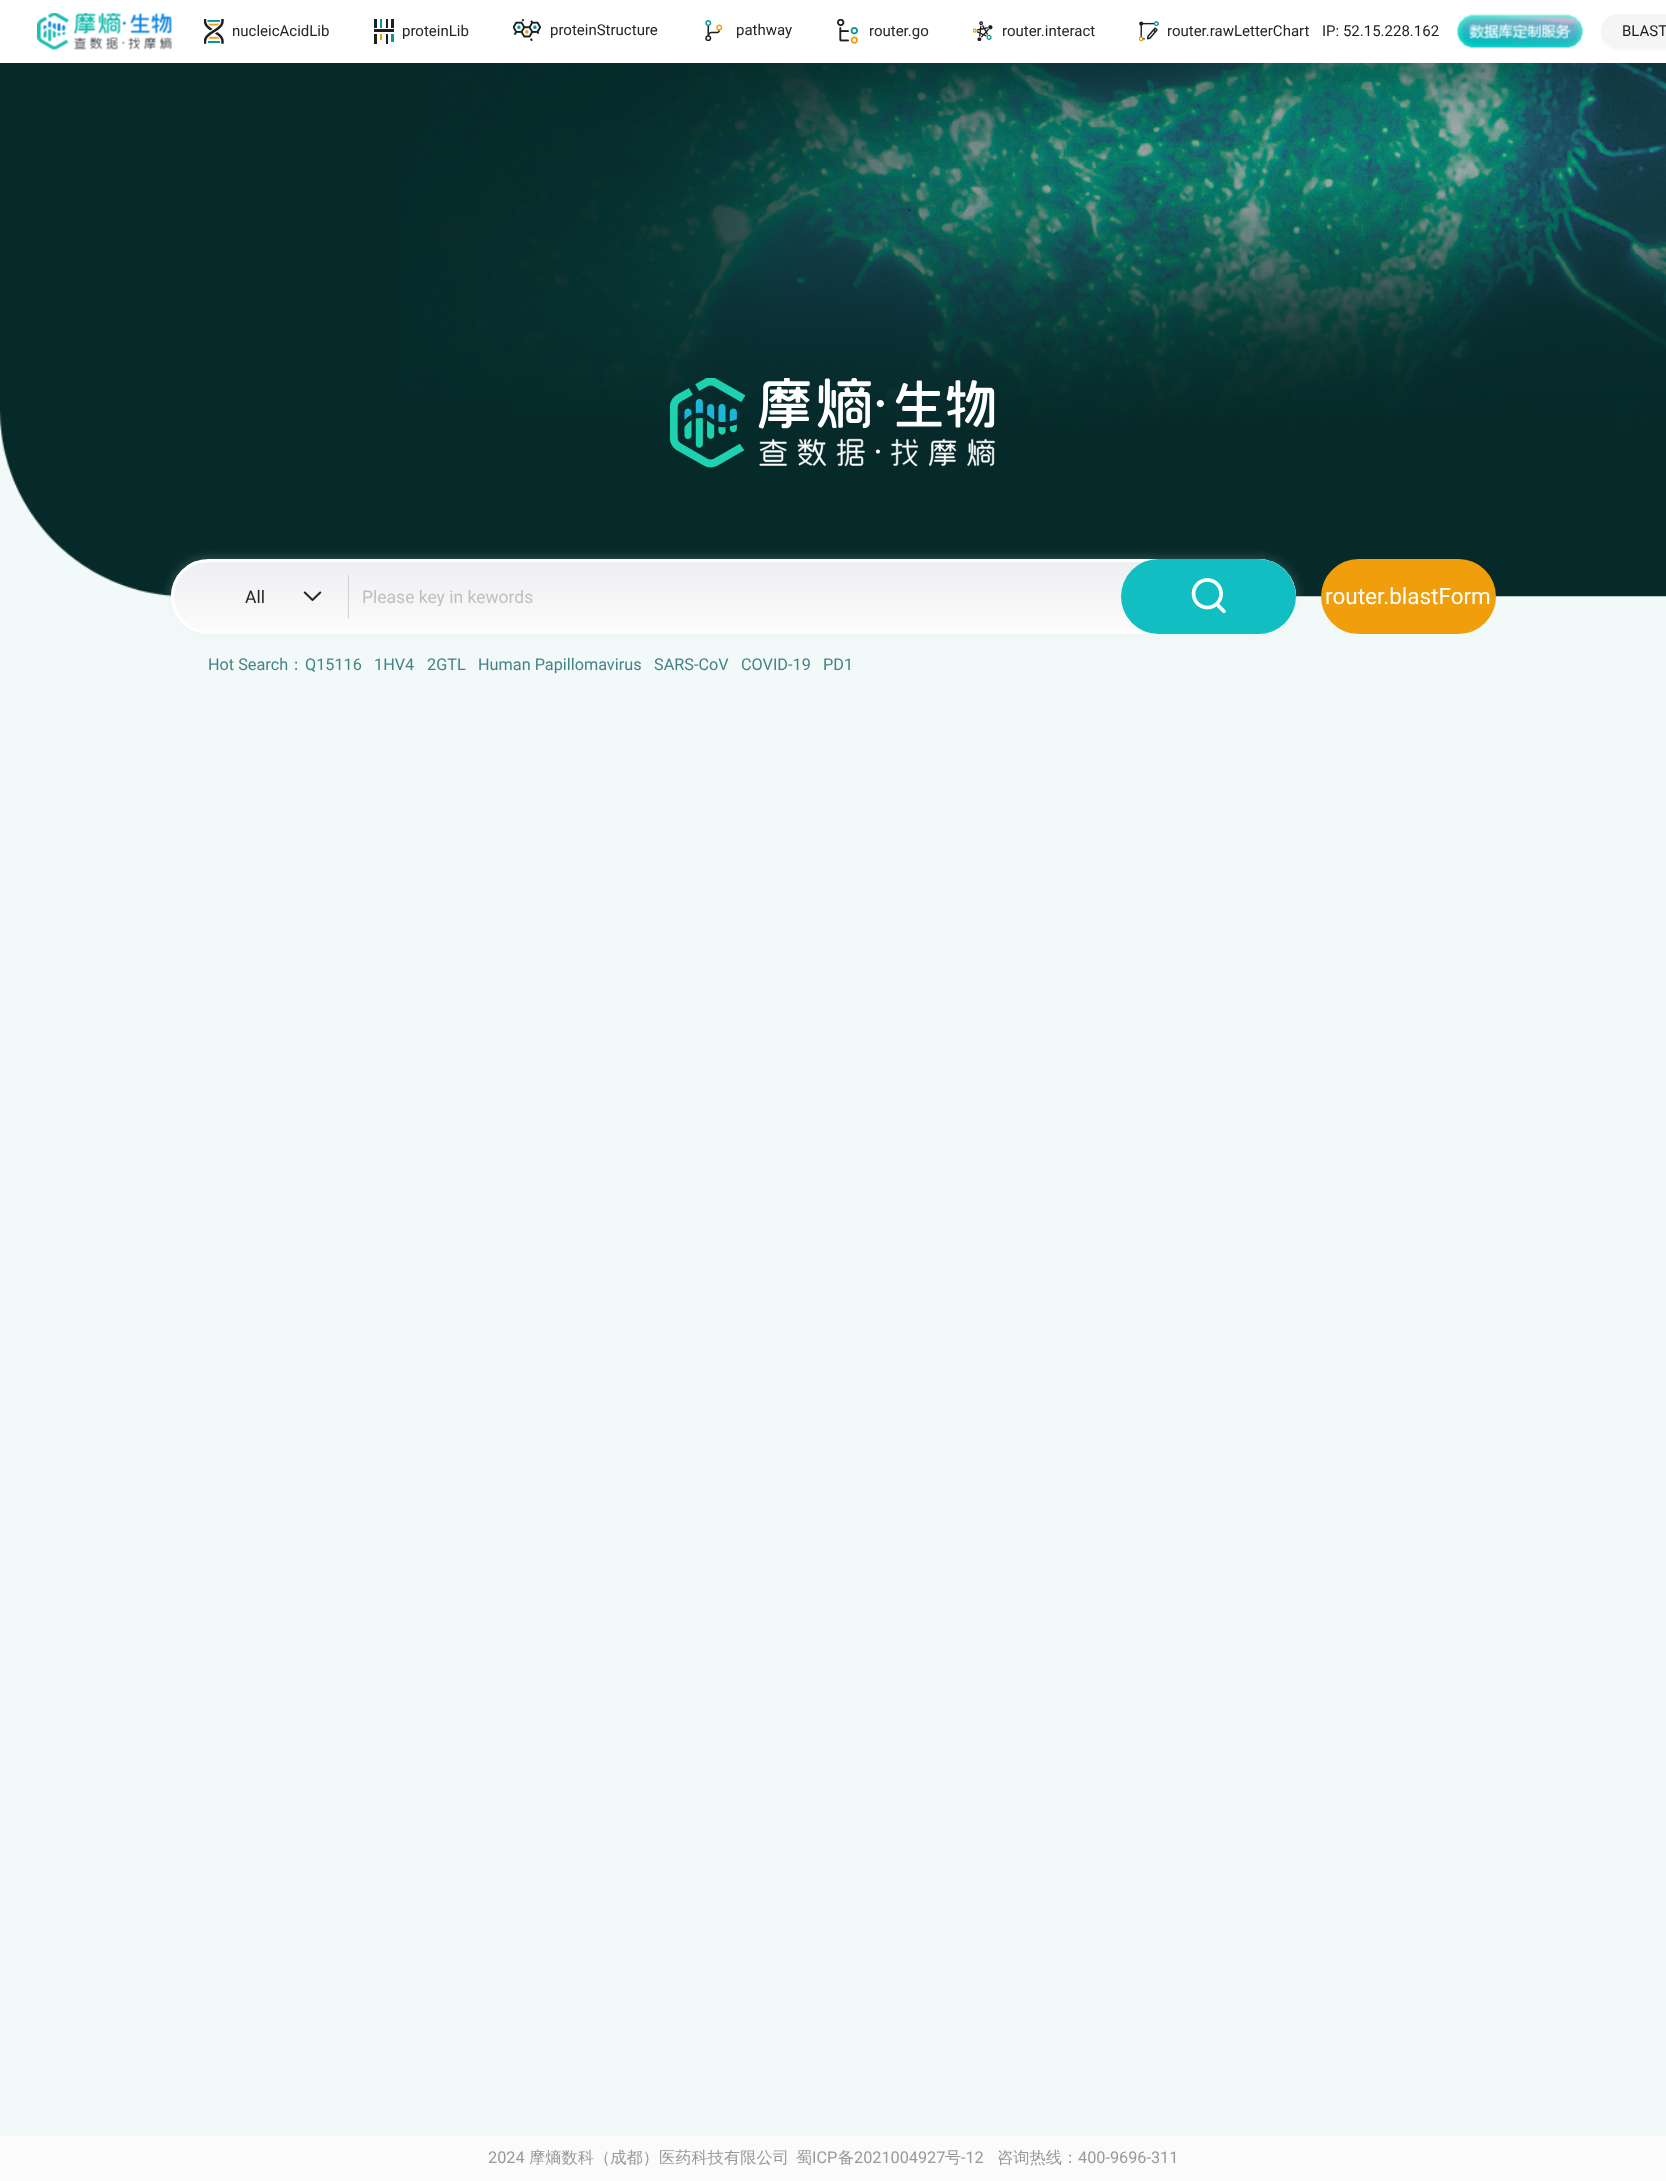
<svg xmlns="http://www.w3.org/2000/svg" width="1666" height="2181">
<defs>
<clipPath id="clip1"><rect x="171" y="559" width="1125" height="75" rx="37.5"/></clipPath>
<linearGradient id="g1" gradientUnits="userSpaceOnUse" x1="734" y1="631" x2="734" y2="561"><stop offset="0" stop-color="#fbfbfb"/><stop offset="1" stop-color="#eeeff2"/></linearGradient>
<clipPath id="clip2"><rect x="363" y="586" width="717" height="20"/></clipPath>
</defs>
<rect width="100%" height="100%" fill="#f2f9f9"/>
<rect width="1666" height="63" fill="#fff"/>
<image x="37" y="13" width="135" height="37" href="media/1.png"/>
<image x="204" y="19" width="20" height="25" href="media/2.png"/>
<text x="232" y="36" style="font-family:Roboto;font-size:15px;fill:#252525">nucleicAcidLib</text>
<image x="374" y="19" width="20" height="25" href="media/3.png"/>
<text x="402" y="36" style="font-family:Roboto;font-size:15px;fill:#252525">proteinLib</text>
<image x="513" y="19" width="28" height="22" href="media/4.png"/>
<text x="550" y="35" style="font-family:Roboto;font-size:15px;fill:#252525">proteinStructure</text>
<image x="705" y="20" width="18" height="21" href="media/5.png"/>
<text x="736" y="35" style="font-family:Roboto;font-size:15px;fill:#252525">pathway</text>
<image x="837" y="19" width="21" height="25" href="media/6.png"/>
<text x="869" y="36" style="font-family:Roboto;font-size:15px;fill:#252525">router.go</text>
<image x="973" y="21" width="20" height="20" href="media/7.png"/>
<text x="1002" y="36" style="font-family:Roboto;font-size:15px;fill:#252525">router.interact</text>
<image x="1139" y="21" width="20" height="21" href="media/8.png"/>
<text x="1167" y="36" style="font-family:Roboto;font-size:15px;fill:#252525">router.rawLetterChart</text>
<text x="1322" y="36" style="font-family:Roboto;font-size:15px;fill:#1b1f1f">IP: 52.15.228.162</text>
<image x="1457" y="14" width="126" height="34" href="media/9.png"/>
<path d="M1601 30v4c0 9 8 17 17 17h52c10 0 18-8 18-17l-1-5c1 4 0 8-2 12c-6 8-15 8-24 8l-46-1c-8-1-14-9-14-18z" fill="#fbfbfb"/>
<rect x="1601" y="14" width="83" height="35" rx="17.5" fill="#f5f5f5"/>
<text x="1622" y="36" style="font-family:Roboto;font-size:15px;fill:#1b1f1f">BLAST</text>
<image x="0" y="63" width="1666" height="534" href="media/10.png"/>
<image x="670" y="378" width="325" height="90" href="media/11.png"/>
<rect x="171" y="559" width="1125" height="75" rx="37.5" fill="#e3e1e142" filter="blur(6px)"/>
<g clip-path="url(#clip1)">
<rect x="171" y="561" width="1125" height="70" fill="url(#g1)"/>
</g>
<rect x="172.5" y="560.5" width="1122" height="72" rx="36" fill="none" stroke="#fff" stroke-width="3"/>
<rect x="348" y="575" width="1" height="43" fill="#cfcfcf"/>
<text x="245" y="603" style="font-family:Roboto;font-size:17.5px;fill:#252525">All</text>
<image x="303" y="591" width="19" height="10" href="media/12.png"/>
<g clip-path="url(#clip2)">
<text x="362" y="603" style="font-family:Roboto;font-size:17.5px;fill:#bfbfbf">Please key in kewords</text>
</g>
<rect x="1121" y="559" width="175" height="75" rx="37.5" fill="#11bfc2"/>
<image x="1191" y="578" width="35" height="36" href="media/13.png"/>
<rect x="1321" y="559" width="175" height="75" rx="37.5" fill="#f19e0c"/>
<text x="1325" y="604" style="font-family:Roboto;font-size:22.5px;fill:#fff">router.blastForm</text>
<text x="208" y="670" style="font-family:Roboto;font-size:16.25px;fill:#458384">Hot Search</text>
<text x="288" y="670" style="font-family:WenQuanYi Zen Hei;font-size:16.25px;font-weight:500;fill:#458384">：</text>
<text x="305" y="670" style="font-family:Roboto;font-size:16.25px;fill:#458384">Q15116</text>
<text x="374" y="670" style="font-family:Roboto;font-size:16.25px;fill:#458384">1HV4</text>
<text x="427" y="670" style="font-family:Roboto;font-size:16.25px;fill:#458384">2GTL</text>
<text x="478" y="670" style="font-family:Roboto;font-size:16.25px;fill:#458384">Human Papillomavirus</text>
<text x="654" y="670" style="font-family:Roboto;font-size:16.25px;fill:#458384">SARS-CoV</text>
<text x="741" y="670" style="font-family:Roboto;font-size:16.25px;fill:#458384">COVID-19</text>
<text x="823" y="670" style="font-family:Roboto;font-size:16.25px;fill:#458384">PD1</text>
<rect y="2136" width="1666" height="45" fill="#fbfbfb"/>
<text x="488" y="2163" style="font-family:Roboto;font-size:16.25px;fill:#999">2024</text>
<text x="529" y="2163" style="font-family:WenQuanYi Zen Hei;font-size:16.25px;font-weight:500;fill:#999">摩熵数科（成都）医药科技有限公司</text>
<text x="796" y="2163" style="font-family:WenQuanYi Zen Hei;font-size:16.25px;font-weight:500;fill:#999">蜀</text>
<text x="812" y="2163" style="font-family:Roboto;font-size:16.25px;fill:#999">ICP</text>
<text x="838" y="2163" style="font-family:WenQuanYi Zen Hei;font-size:16.25px;font-weight:500;fill:#999">备</text>
<text x="854" y="2163" style="font-family:Roboto;font-size:16.25px;fill:#999">2021004927</text>
<text x="945" y="2163" style="font-family:WenQuanYi Zen Hei;font-size:16.25px;font-weight:500;fill:#999">号</text>
<text x="961" y="2163" style="font-family:Roboto;font-size:16.25px;fill:#999">-12</text>
<text x="997" y="2163" style="font-family:WenQuanYi Zen Hei;font-size:16.25px;font-weight:500;fill:#999">咨询热线：</text>
<text x="1078" y="2163" style="font-family:Roboto;font-size:16.25px;fill:#999">400-9696-311</text>
</svg>
